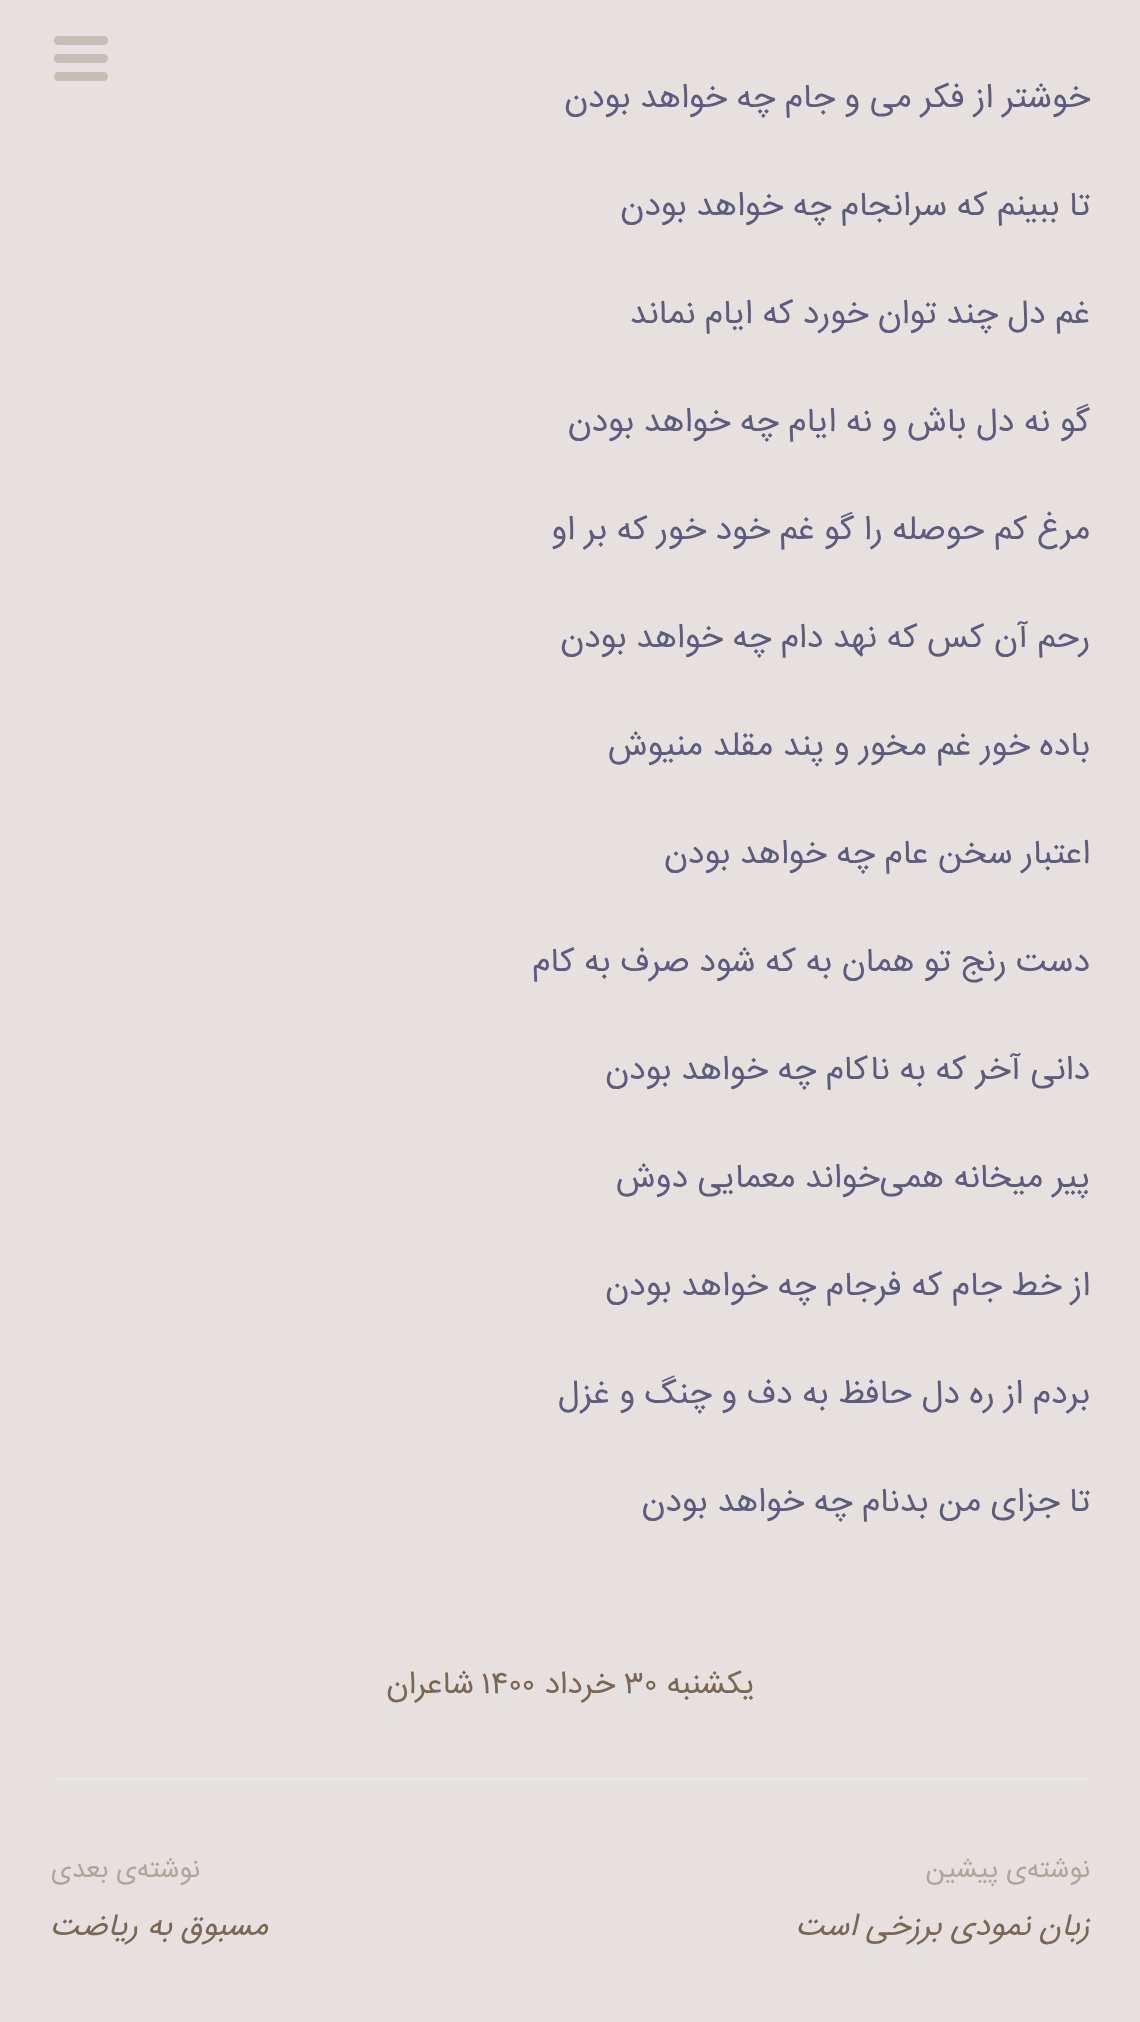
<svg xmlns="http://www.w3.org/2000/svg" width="1140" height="2022">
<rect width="100%" height="100%" fill="#e6e1de"/>
<rect x="54" y="54" width="54" height="9" rx="4.5" fill="#c6bdb5"/>
<rect x="54" y="36" width="54" height="9" rx="4.5" fill="#c6bdb5"/>
<rect x="54" y="72" width="54" height="9" rx="4.5" fill="#c6bdb5"/>
<text x="1090" y="107" style="font-family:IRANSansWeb;font-size:33.75px;direction:rtl;fill:#5d5c7e">خوشتر از فکر می و جام چه خواهد بودن</text>
<text x="1090" y="215" style="font-family:IRANSansWeb;font-size:33.75px;direction:rtl;fill:#5d5c7e">تا ببینم که سرانجام چه خواهد بودن</text>
<text x="1090" y="323" style="font-family:IRANSansWeb;font-size:33.75px;direction:rtl;fill:#5d5c7e">غم دل چند توان خورد که ایام نماند</text>
<text x="1090" y="431" style="font-family:IRANSansWeb;font-size:33.75px;direction:rtl;fill:#5d5c7e">گو نه دل باش و نه ایام چه خواهد بودن</text>
<text x="1090" y="539" style="font-family:IRANSansWeb;font-size:33.75px;direction:rtl;fill:#5d5c7e">مرغ کم حوصله را گو غم خود خور که بر او</text>
<text x="1090" y="647" style="font-family:IRANSansWeb;font-size:33.75px;direction:rtl;fill:#5d5c7e">رحم آن کس که نهد دام چه خواهد بودن</text>
<text x="1090" y="755" style="font-family:IRANSansWeb;font-size:33.75px;direction:rtl;fill:#5d5c7e">باده خور غم مخور و پند مقلد منیوش</text>
<text x="1090" y="863" style="font-family:IRANSansWeb;font-size:33.75px;direction:rtl;fill:#5d5c7e">اعتبار سخن عام چه خواهد بودن</text>
<text x="1090" y="971" style="font-family:IRANSansWeb;font-size:33.75px;direction:rtl;fill:#5d5c7e">دست رنج تو همان به که شود صرف به کام</text>
<text x="1090" y="1079" style="font-family:IRANSansWeb;font-size:33.75px;direction:rtl;fill:#5d5c7e">دانی آخر که به ناکام چه خواهد بودن</text>
<text x="1090" y="1187" style="font-family:IRANSansWeb;font-size:33.75px;direction:rtl;fill:#5d5c7e">پیر میخانه همی‌خواند معمایی دوش</text>
<text x="1090" y="1295" style="font-family:IRANSansWeb;font-size:33.75px;direction:rtl;fill:#5d5c7e">از خط جام که فرجام چه خواهد بودن</text>
<text x="1090" y="1403" style="font-family:IRANSansWeb;font-size:33.75px;direction:rtl;fill:#5d5c7e">بردم از ره دل حافظ به دف و چنگ و غزل</text>
<text x="1090" y="1511" style="font-family:IRANSansWeb;font-size:33.75px;direction:rtl;fill:#5d5c7e">تا جزای من بدنام چه خواهد بودن</text>
<text x="755" y="1693" style="font-family:IRANSansWeb;font-size:31.5px;direction:rtl;fill:#7a6855">یکشنبه</text>
<text x="624" y="1693" style="font-family:IRANSansWeb;font-size:31.5px;fill:#7a6855">۳۰</text>
<text x="615" y="1693" style="font-family:IRANSansWeb;font-size:31.5px;direction:rtl;fill:#7a6855">خرداد</text>
<text x="481" y="1693" style="font-family:IRANSansWeb;font-size:31.5px;fill:#7a6855">۱۴۰۰</text>
<text x="474" y="1693" style="font-family:IRANSansWeb;font-size:31.5px;direction:rtl;fill:#7a6855">شاعران</text>
<rect x="52" y="1778" width="1039" height="2" fill="#e2e7e8"/>
<text x="1090" y="1877" style="font-family:IRANSansWeb;font-size:27px;direction:rtl;fill:#b0a59a">نوشته‌ی پیشین</text>
<text x="1090" y="1935" style="font-family:IRANSansWeb;font-size:31.5px;font-style:italic;direction:rtl;fill:#7a6855">زبان نمودی برزخی است</text>
<text x="200" y="1877" style="font-family:IRANSansWeb;font-size:27px;direction:rtl;fill:#b0a59a">نوشته‌ی بعدی</text>
<text x="268" y="1935" style="font-family:IRANSansWeb;font-size:31.5px;font-style:italic;direction:rtl;fill:#7a6855">مسبوق به ریاضت</text>
</svg>
